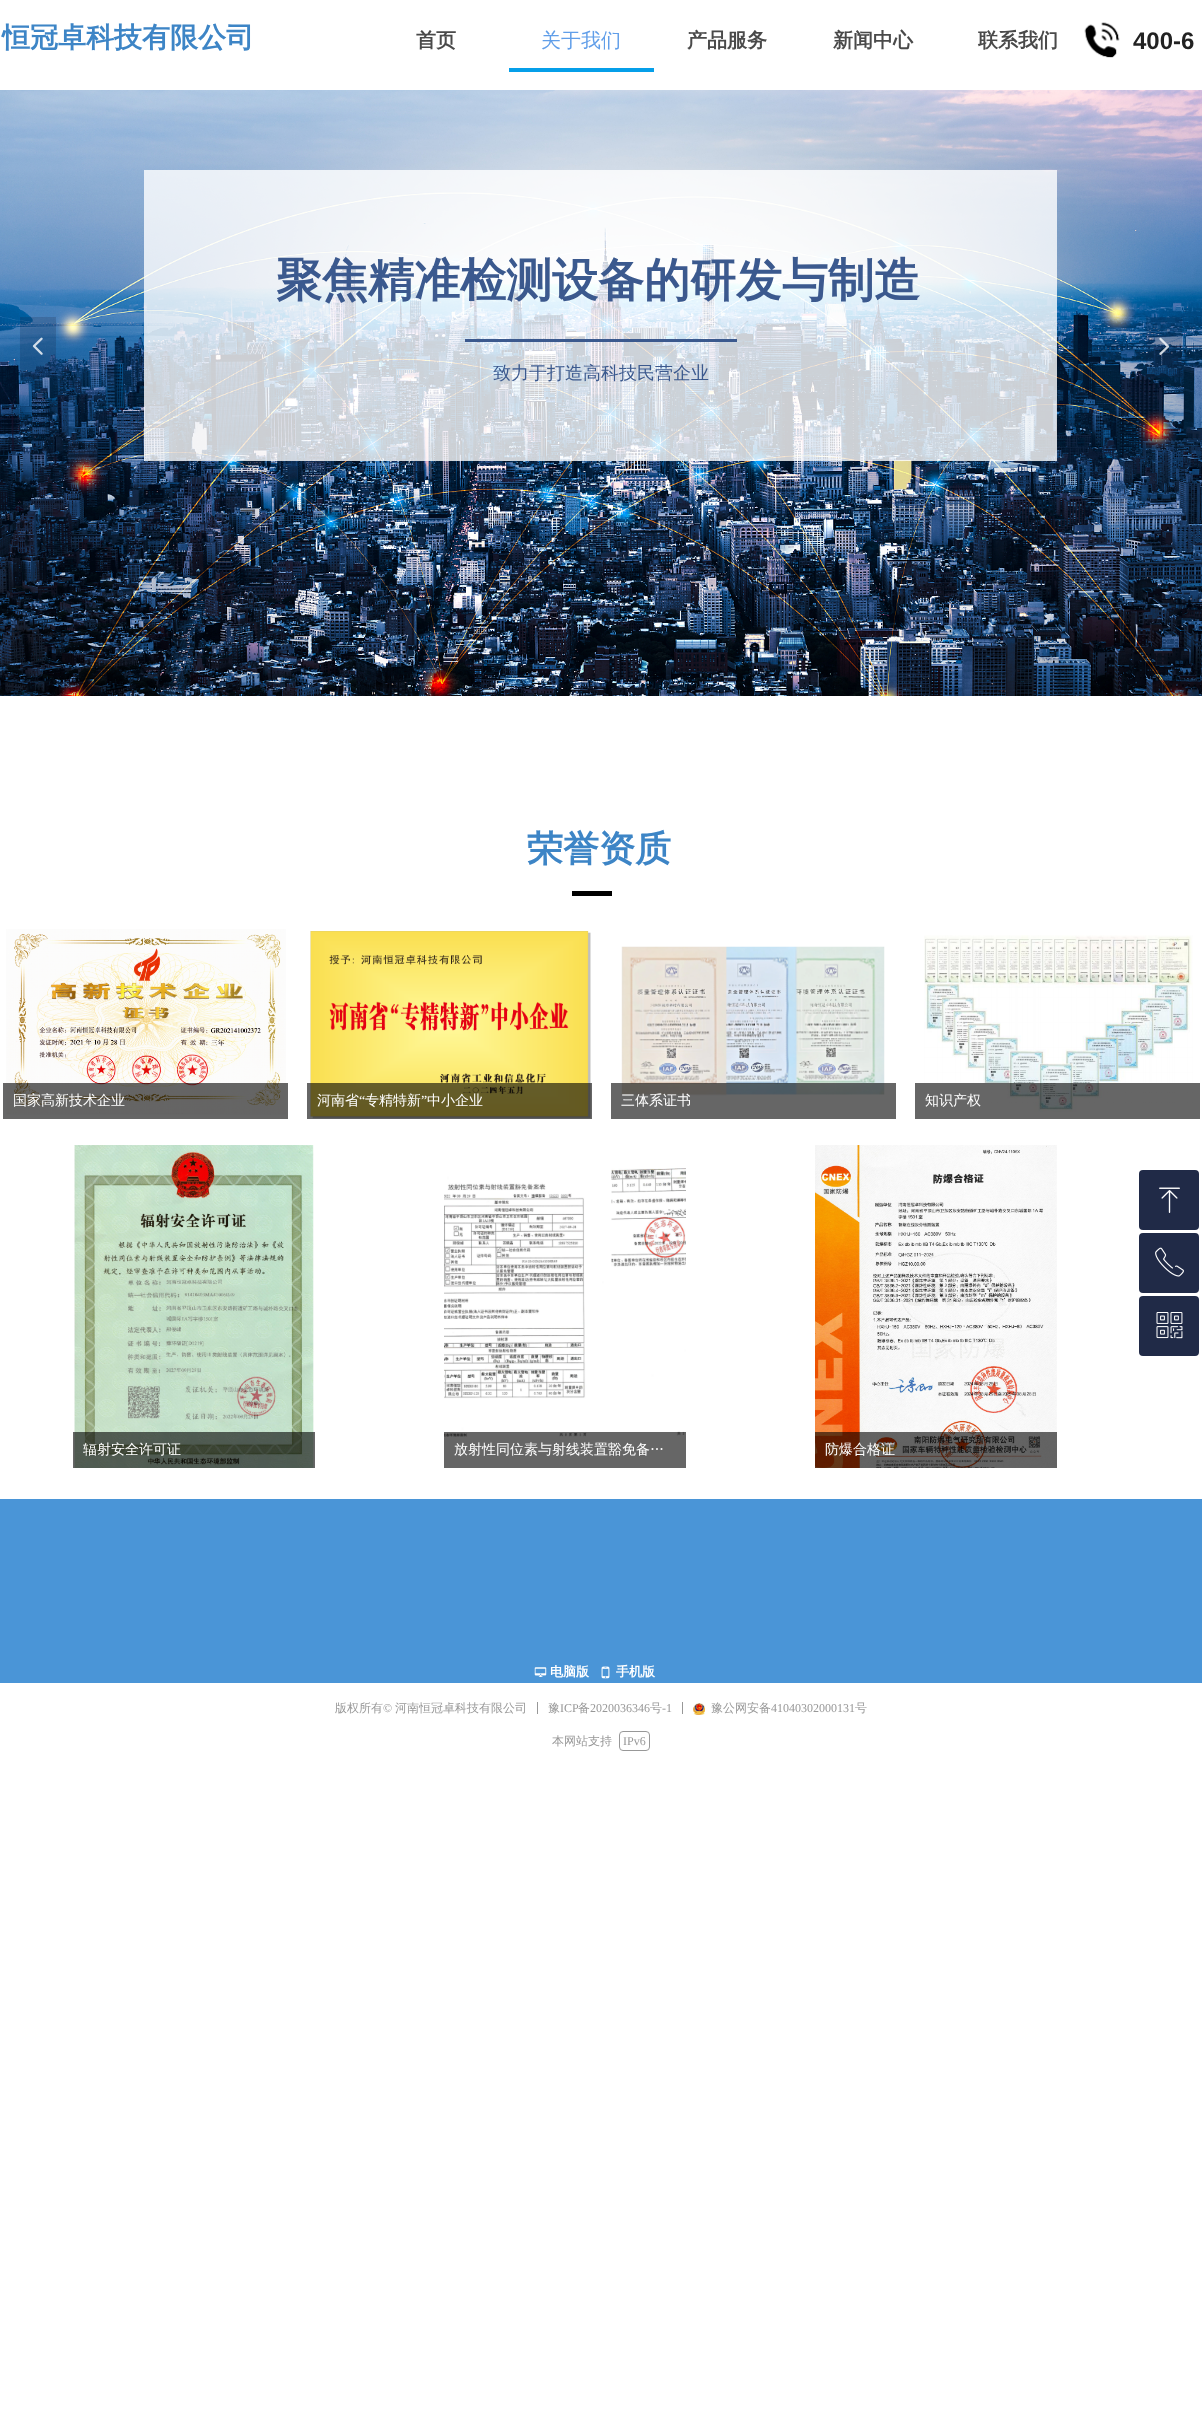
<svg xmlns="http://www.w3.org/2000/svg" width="1202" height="2429">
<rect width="100%" height="100%" fill="#fff"/>
<text x="2" y="47" style="font-family:WenQuanYi Zen Hei;font-size:28px;font-weight:bold;fill:#3d85c6">恒冠卓科技有限公司</text>
<text x="416" y="47" style="font-family:WenQuanYi Zen Hei;font-size:20px;font-weight:bold;fill:#4a4a4a">首页</text>
<text x="541" y="47" style="font-family:WenQuanYi Zen Hei;font-size:20px;font-weight:500;fill:#609ee9">关于我们</text>
<rect x="509" y="68" width="145" height="4" fill="#059fe9"/>
<text x="687" y="47" style="font-family:WenQuanYi Zen Hei;font-size:20px;font-weight:bold;fill:#4a4a4a">产品服务</text>
<text x="833" y="47" style="font-family:WenQuanYi Zen Hei;font-size:20px;font-weight:bold;fill:#4a4a4a">新闻中心</text>
<text x="978" y="47" style="font-family:WenQuanYi Zen Hei;font-size:20px;font-weight:bold;fill:#4a4a4a">联系我们</text>
<image x="1084" y="22" width="36" height="36" href="media/1.png"/>
<text x="1133" y="49" style="font-family:Liberation Sans;font-size:24px;font-weight:bold;fill:#222">400-6</text>
<image x="0" y="90" width="1202" height="606" href="media/3.png"/>
<rect x="20" y="317" width="36" height="60" fill="#15203e33"/>
<image x="32" y="337" width="11" height="18" href="media/2.png"/>
<rect x="144" y="170" width="913" height="291" fill="#ffffffcc"/>
<text x="276" y="296" style="font-family:WenQuanYi Zen Hei;font-size:46px;font-weight:bold;fill:#3b598e">聚焦精准检测设备的研发与制造</text>
<rect x="465" y="339" width="272" height="3" fill="#3b598e"/>
<text x="493" y="379" style="font-family:WenQuanYi Zen Hei;font-size:18px;font-weight:500;fill:#3b598e">致力于打造高科技民营企业</text>
<rect x="1146" y="317" width="36" height="60" fill="#15203e33"/>
<image x="1159" y="337" width="11" height="18" href="media/4.png"/>
<text x="527" y="861" style="font-family:WenQuanYi Zen Hei;font-size:36px;font-weight:bold;fill:#3d85c6">荣誉资质</text>
<rect x="572" y="891" width="40" height="5" fill="#000"/>
<image x="6" y="929" width="280" height="186" href="media/5.png"/>
<rect x="3" y="1083" width="285" height="36" fill="#00000099"/>
<text x="13" y="1105" style="font-family:WenQuanYi Zen Hei;font-size:14px;font-weight:500;fill:#fff">国家高新技术企业</text>
<image x="310" y="931" width="281" height="188" href="media/6.png"/>
<rect x="307" y="1083" width="285" height="36" fill="#00000099"/>
<text x="317" y="1105" style="font-family:WenQuanYi Zen Hei;font-size:14px;font-weight:500;fill:#fff">河南省</text>
<text x="359" y="1105" style="font-family:Liberation Serif;font-size:14px;fill:#fff">“</text>
<text x="365" y="1105" style="font-family:WenQuanYi Zen Hei;font-size:14px;font-weight:500;fill:#fff">专精特新</text>
<text x="421" y="1105" style="font-family:Liberation Serif;font-size:14px;fill:#fff">”</text>
<text x="427" y="1105" style="font-family:WenQuanYi Zen Hei;font-size:14px;font-weight:500;fill:#fff">中小企业</text>
<image x="621" y="946" width="264" height="150" href="media/7.png"/>
<rect x="611" y="1083" width="285" height="36" fill="#00000099"/>
<text x="621" y="1105" style="font-family:WenQuanYi Zen Hei;font-size:14px;font-weight:500;fill:#fff">三体系证书</text>
<image x="924" y="935" width="269" height="177" href="media/8.png"/>
<rect x="915" y="1083" width="285" height="36" fill="#00000099"/>
<text x="925" y="1105" style="font-family:WenQuanYi Zen Hei;font-size:14px;font-weight:500;fill:#fff">知识产权</text>
<image x="74" y="1145" width="240" height="323" href="media/9.png"/>
<rect x="73" y="1432" width="242" height="36" fill="#00000099"/>
<text x="83" y="1454" style="font-family:WenQuanYi Zen Hei;font-size:14px;font-weight:500;fill:#fff">辐射安全许可证</text>
<image x="444" y="1168" width="242" height="269" href="media/10.png"/>
<rect x="444" y="1432" width="242" height="36" fill="#00000099"/>
<text x="454" y="1454" style="font-family:WenQuanYi Zen Hei;font-size:14px;font-weight:500;fill:#fff">放射性同位素与射线装置豁免备…</text>
<image x="815" y="1145" width="242" height="323" href="media/11.png"/>
<rect x="815" y="1432" width="242" height="36" fill="#00000099"/>
<text x="825" y="1454" style="font-family:WenQuanYi Zen Hei;font-size:14px;font-weight:500;fill:#fff">防爆合格证</text>
<rect y="1499" width="1202" height="184" fill="#4a95d7"/>
<image x="534" y="1667" width="13" height="10" href="media/12.png"/>
<text x="550" y="1676" style="font-family:WenQuanYi Zen Hei;font-size:13px;font-weight:bold;fill:#fff">电脑版</text>
<image x="601" y="1666" width="9" height="13" href="media/13.png"/>
<text x="616" y="1676" style="font-family:WenQuanYi Zen Hei;font-size:13px;font-weight:bold;fill:#fff">手机版</text>
<rect x="1139" y="1170" width="60" height="60" rx="4" fill="#202a47"/>
<image x="1159" y="1187" width="21" height="26" href="media/14.png"/>
<rect x="1139" y="1233" width="60" height="60" rx="4" fill="#202a47"/>
<image x="1155" y="1247" width="29" height="30" href="media/15.png"/>
<rect x="1139" y="1296" width="60" height="60" rx="4" fill="#202a47"/>
<image x="1156" y="1312" width="27" height="27" href="media/16.png"/>
<text x="335" y="1712" style="font-family:WenQuanYi Zen Hei;font-size:12px;font-weight:500;fill:#989898">版权所有</text>
<text x="383" y="1712" style="font-family:Liberation Serif;font-size:12px;fill:#989898">©</text>
<text x="395" y="1712" style="font-family:WenQuanYi Zen Hei;font-size:12px;font-weight:500;fill:#989898">河南恒冠卓科技有限公司</text>
<rect x="537" y="1702" width="1" height="12" fill="#989898"/>
<text x="548" y="1712" style="font-family:WenQuanYi Zen Hei;font-size:12px;font-weight:500;fill:#989898">豫</text>
<text x="560" y="1712" style="font-family:Liberation Serif;font-size:12px;fill:#989898">ICP</text>
<text x="578" y="1712" style="font-family:WenQuanYi Zen Hei;font-size:12px;font-weight:500;fill:#989898">备</text>
<text x="590" y="1712" style="font-family:Liberation Serif;font-size:12px;fill:#989898">2020036346</text>
<text x="650" y="1712" style="font-family:WenQuanYi Zen Hei;font-size:12px;font-weight:500;fill:#989898">号</text>
<text x="662" y="1712" style="font-family:Liberation Serif;font-size:12px;fill:#989898">-1</text>
<rect x="682" y="1702" width="1" height="12" fill="#989898"/>
<image x="693" y="1703" width="12" height="12" href="media/17.png"/>
<text x="711" y="1712" style="font-family:WenQuanYi Zen Hei;font-size:12px;font-weight:500;fill:#989898">豫公网安备</text>
<text x="771" y="1712" style="font-family:Liberation Serif;font-size:12px;fill:#989898">41040302000131</text>
<text x="855" y="1712" style="font-family:WenQuanYi Zen Hei;font-size:12px;font-weight:500;fill:#989898">号</text>
<text x="552" y="1745" style="font-family:WenQuanYi Zen Hei;font-size:12px;font-weight:500;fill:#989898">本网站支持</text>
<rect x="619.5" y="1731.5" width="30" height="19" rx="3.5" fill="none" stroke="#989898"/>
<text x="623" y="1745" style="font-family:Liberation Serif;font-size:12px;fill:#989898">IPv6</text>
</svg>
